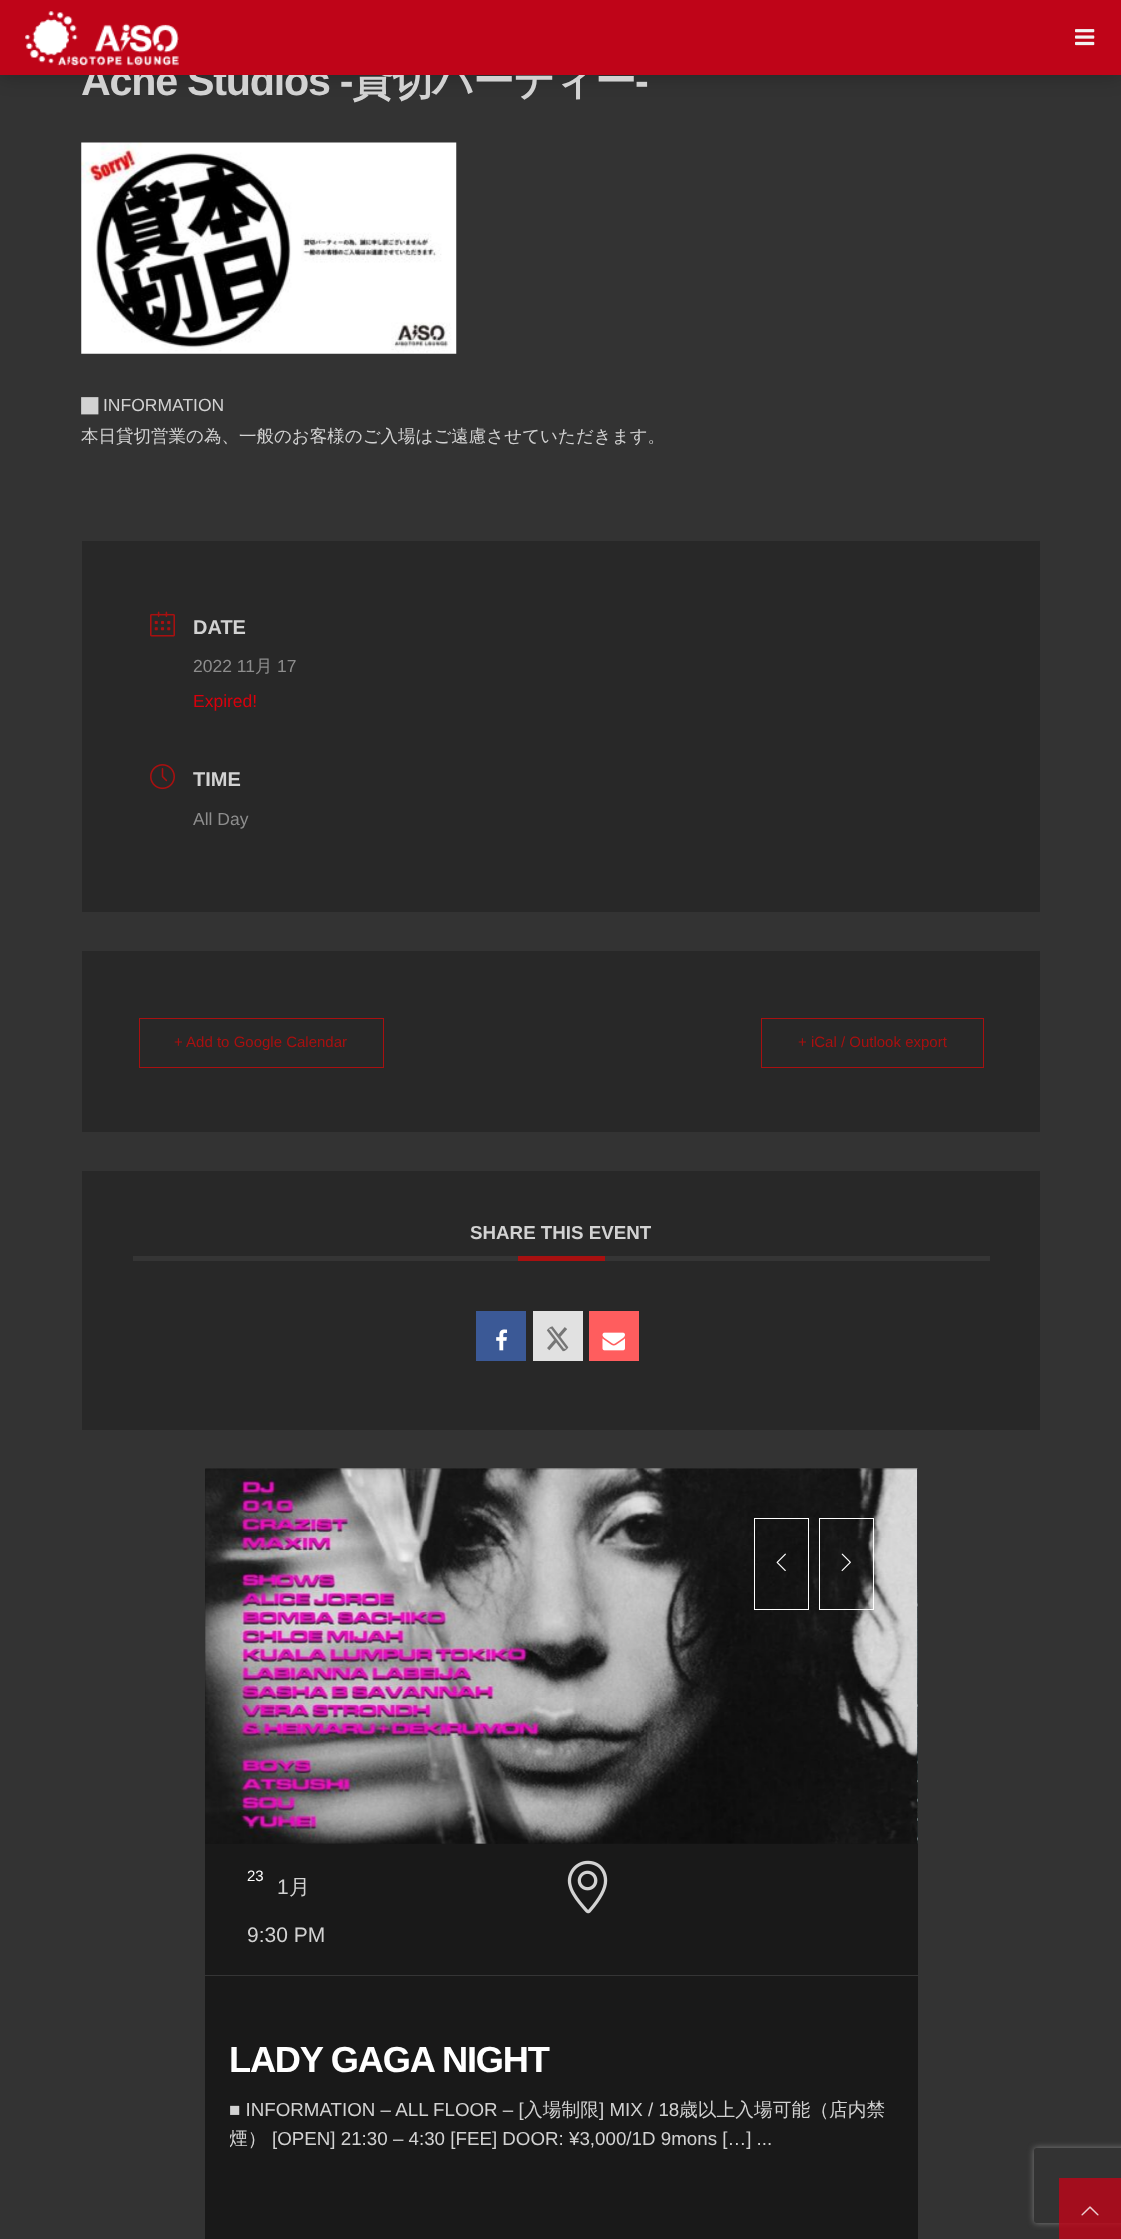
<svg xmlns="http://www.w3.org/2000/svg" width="1121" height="2239">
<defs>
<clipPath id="clip1"><rect x="230" y="2095" width="663" height="58"/></clipPath>
<clipPath id="clip2"><path d="M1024 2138h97v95h-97zm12.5 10h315c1.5 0 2.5 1 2.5 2.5v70c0 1.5-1 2.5-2.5 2.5h-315c-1.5 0-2.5-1-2.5-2.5v-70c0-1.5 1-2.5 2.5-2.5z" clip-rule="evenodd"/></clipPath>
</defs>
<rect width="100%" height="100%" fill="#333"/>
<rect y="3" width="1121" height="75" fill="#00000033" filter="blur(9px)"/>
<text x="81" y="95" style="font-family:Liberation Sans;font-size:41.25px;font-weight:bold;letter-spacing:-1.25px;fill:#d2d2d2">Acne Studios -</text>
<text x="352" y="95" style="font-family:WenQuanYi Zen Hei;font-size:41.25px;font-weight:bold;letter-spacing:-1.25px;fill:#d2d2d2">貸切パーティー</text>
<rect width="1121" height="75" fill="#bf0418"/>
<image x="25" y="11" width="154" height="55" href="media/1.png"/>
<image x="1075" y="29" width="20" height="17" href="media/2.png"/>
<text x="635" y="95" style="font-family:Liberation Sans;font-size:41.25px;font-weight:bold;letter-spacing:-1.25px;fill:#d2d2d2">-</text>
<image x="81" y="142" width="376" height="212" href="media/3.png"/>
<text x="81" y="411" style="font-family:FreeSans;font-size:17.5px;fill:#d2d2d2">⬛︎</text>
<text x="103" y="411" style="font-family:Liberation Sans;font-size:17.5px;fill:#d2d2d2">INFORMATION</text>
<text x="81" y="442" style="font-family:WenQuanYi Zen Hei;font-size:17.5px;font-weight:500;fill:#d2d2d2">本日貸切営業の為、一般のお客様のご入場はご遠慮させていただきます。</text>
<rect x="82" y="541" width="958" height="371" fill="#282828"/>
<image x="150" y="611" width="25" height="26" href="media/4.png"/>
<text x="193" y="634" style="font-family:Liberation Sans;font-size:20px;font-weight:bold;fill:#d2d2d2">DATE</text>
<text x="193" y="672" style="font-family:Liberation Sans;font-size:17.5px;fill:#8d8d8d">2022 11</text>
<text x="255" y="672" style="font-family:WenQuanYi Zen Hei;font-size:17.5px;font-weight:500;fill:#8d8d8d">月</text>
<text x="277" y="672" style="font-family:Liberation Sans;font-size:17.5px;fill:#8d8d8d">17</text>
<text x="193" y="707" style="font-family:Liberation Sans;font-size:17.5px;fill:#d8000c">Expired!</text>
<image x="150" y="764" width="25" height="26" href="media/5.png"/>
<text x="193" y="786" style="font-family:Liberation Sans;font-size:20px;font-weight:bold;fill:#d2d2d2">TIME</text>
<text x="193" y="825" style="font-family:Liberation Sans;font-size:17.5px;fill:#8d8d8d">All Day</text>
<rect x="82" y="951" width="958" height="181" fill="#282828"/>
<rect x="139.5" y="1018.5" width="244" height="49" fill="none" stroke="#a81010"/>
<text x="174" y="1047" style="font-family:Liberation Sans;font-size:15px;fill:#a81010">+ Add to Google Calendar</text>
<rect x="761.5" y="1018.5" width="222" height="49" fill="none" stroke="#a81010"/>
<text x="798" y="1047" style="font-family:Liberation Sans;font-size:15px;fill:#a81010">+ iCal / Outlook export</text>
<rect x="82" y="1171" width="958" height="259" fill="#282828"/>
<rect x="133" y="1256" width="857" height="5" fill="#353535"/>
<text x="470" y="1239" style="font-family:Liberation Sans;font-size:18.75px;font-weight:bold;fill:#d2d2d2">SHARE THIS EVENT</text>
<rect x="518" y="1256" width="87" height="5" fill="#a81010"/>
<rect x="476" y="1311" width="50" height="50" fill="#3b5996"/>
<image x="496" y="1329" width="12" height="22" href="media/6.png"/>
<rect x="533" y="1311" width="50" height="50" fill="#e1e1e1"/>
<image x="546" y="1326" width="23" height="26" href="media/7.png"/>
<rect x="589" y="1311" width="50" height="50" fill="#ff5d5e"/>
<image x="602" y="1332" width="23" height="19" href="media/8.png"/>
<rect x="205" y="1469" width="713" height="770" fill="#191919"/>
<image x="205" y="1468" width="713" height="376" href="media/12.png"/>
<rect x="754.5" y="1518.5" width="54" height="91" fill="none" stroke="#fff"/>
<image x="776" y="1553" width="10" height="18" href="media/9.png"/>
<rect x="819.5" y="1518.5" width="54" height="91" fill="none" stroke="#fff"/>
<image x="841" y="1553" width="10" height="19" href="media/10.png"/>
<image x="917" y="1468" width="1" height="376" href="media/11.png"/>
<rect x="205" y="1975" width="713" height="1" fill="#353535"/>
<text x="247" y="1881" style="font-family:Liberation Sans;font-size:15px;fill:#fff">23</text>
<text x="277" y="1894" style="font-family:Liberation Sans;font-size:21px;fill:#d2d2d2">1</text>
<text x="289" y="1894" style="font-family:WenQuanYi Zen Hei;font-size:21px;font-weight:500;fill:#d2d2d2">月</text>
<text x="247" y="1942" style="font-family:Liberation Sans;font-size:21px;fill:#d2d2d2">9:30 PM</text>
<image x="567" y="1860" width="41" height="54" href="media/13.png"/>
<text x="229" y="2072" style="font-family:Liberation Sans;font-size:36.25px;font-weight:bold;letter-spacing:-1.25px;fill:#fff">LADY GAGA NIGHT</text>
<text x="229" y="2116" style="font-family:Liberation Sans;font-size:18.75px;fill:#d2d2d2">■ INFORMATION – ALL FLOOR – [</text>
<text x="524" y="2116" style="font-family:WenQuanYi Zen Hei;font-size:18.75px;font-weight:500;fill:#d2d2d2">入場制限</text>
<text x="599" y="2116" style="font-family:Liberation Sans;font-size:18.75px;fill:#d2d2d2">] MIX / 18</text>
<text x="679" y="2116" style="font-family:WenQuanYi Zen Hei;font-size:18.75px;font-weight:500;fill:#d2d2d2">歳以上入場可能（店内禁</text>
<g clip-path="url(#clip1)">
<text x="229" y="2145" style="font-family:WenQuanYi Zen Hei;font-size:18.75px;font-weight:500;fill:#d2d2d2">煙）</text>
</g>
<text x="272" y="2145" style="font-family:Liberation Sans;font-size:18.75px;fill:#d2d2d2">[OPEN] 21:30 – 4:30 [FEE] DOOR: ¥3,000/1D 9mons […] ...</text>
<g clip-path="url(#clip2)">
<rect x="1034" y="2148" width="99" height="75" rx="2.5" fill="#808080" filter="blur(3px)"/>
</g>
<rect x="1059" y="2178" width="62" height="61" fill="#bf0418cc"/>
<image x="1081" y="2206" width="18" height="10" href="media/14.png"/>
</svg>
